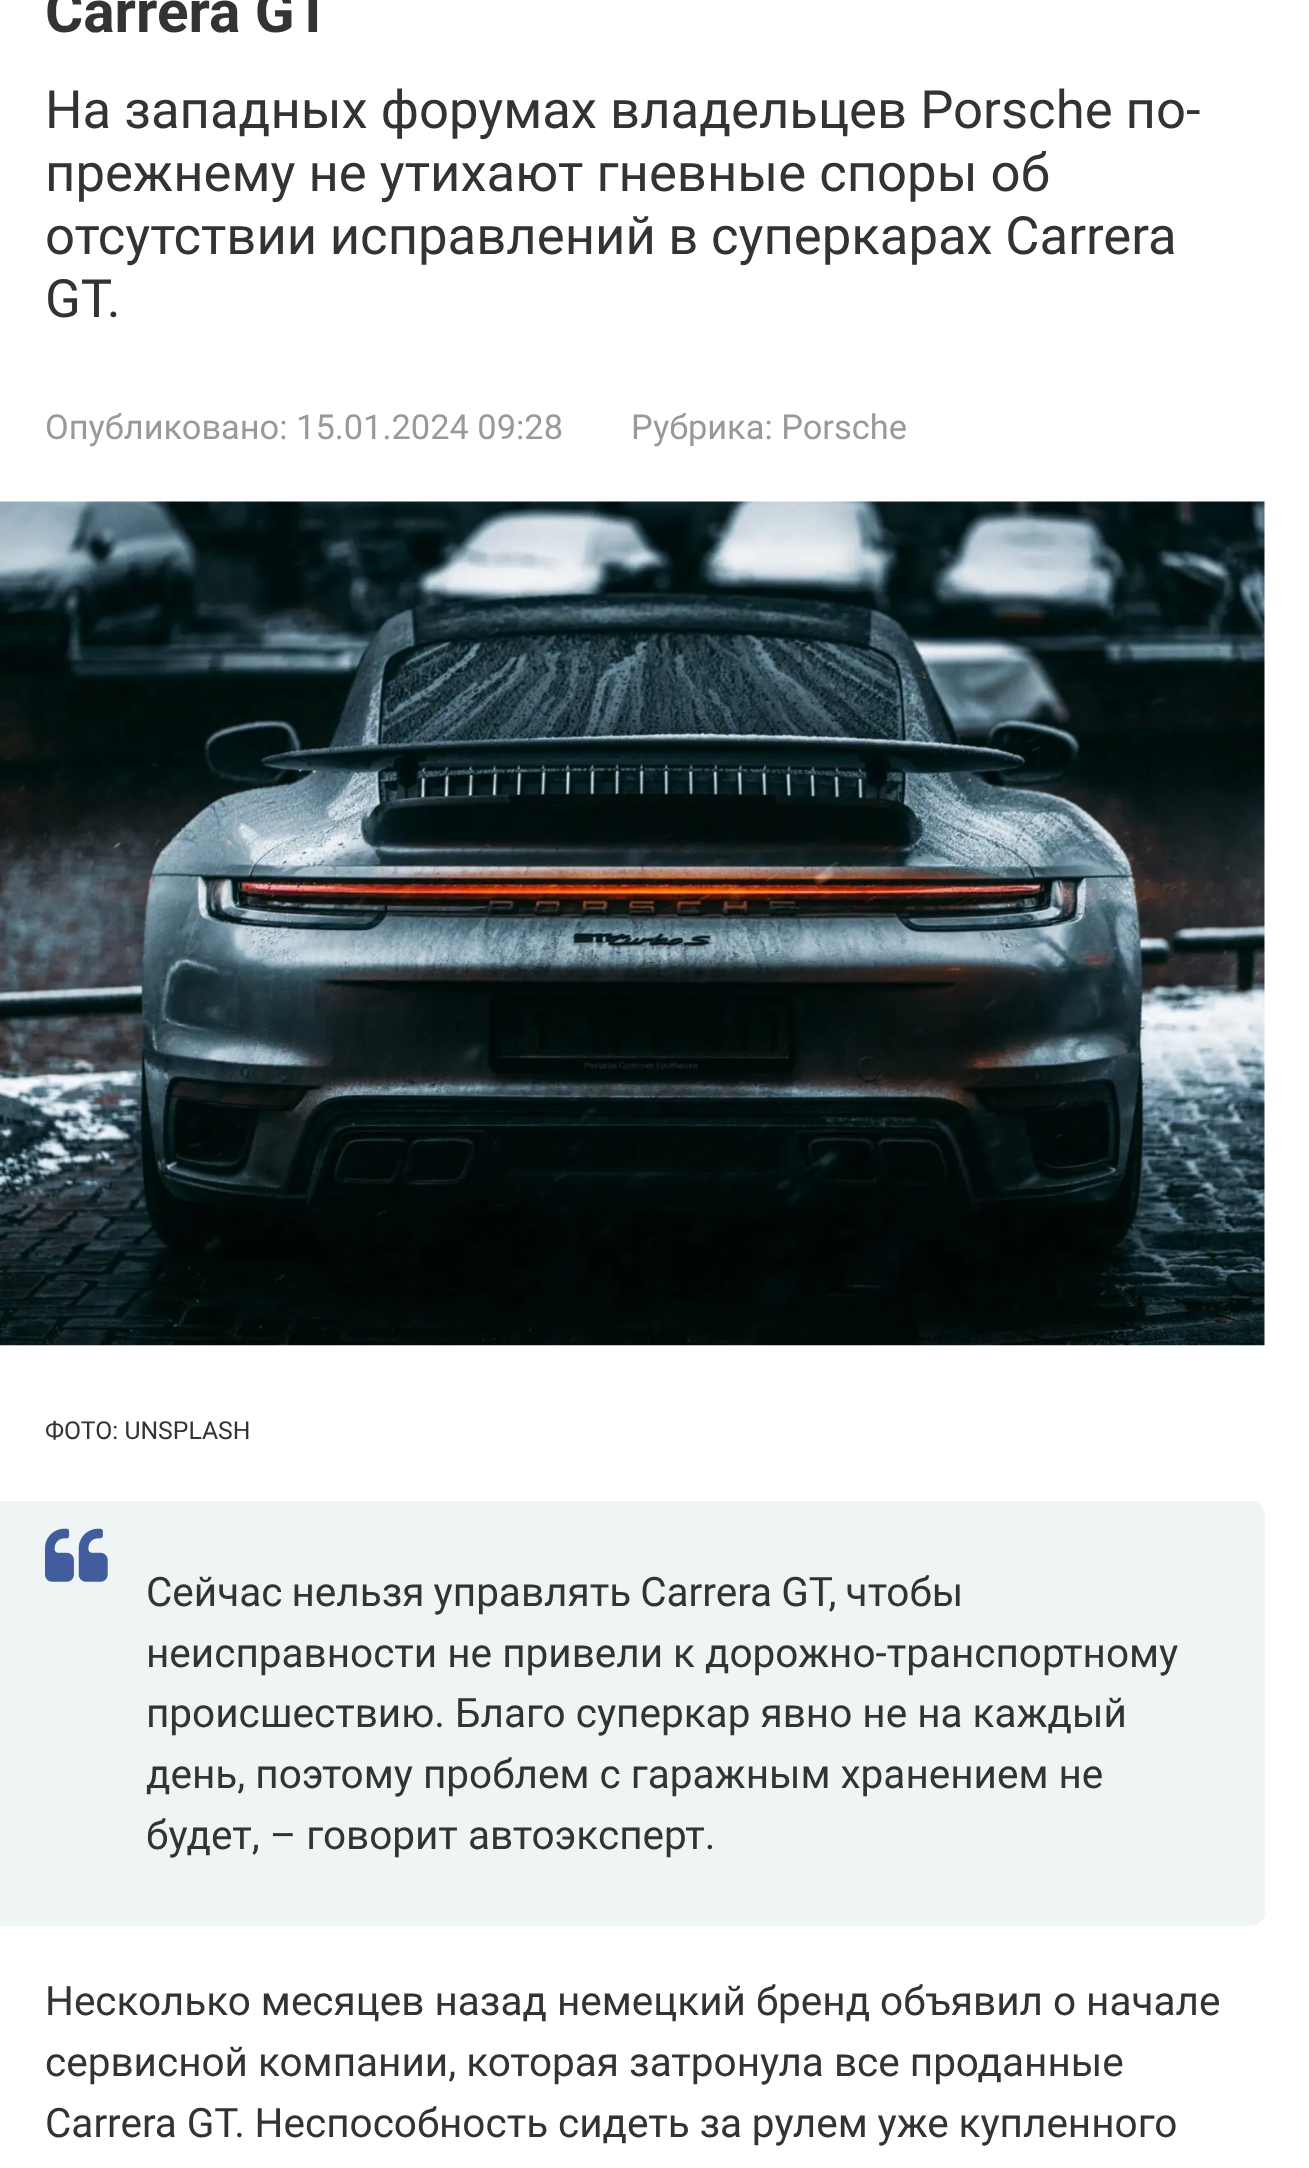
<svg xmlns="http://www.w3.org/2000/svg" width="1309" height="2168">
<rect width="100%" height="100%" fill="#fff"/>
<text x="45" y="32" style="font-family:Roboto;font-size:58.5px;font-weight:bold;fill:#333">Carrera GT</text>
<text x="45" y="128" style="font-family:Roboto;font-size:52.65px;fill:#333">На западных форумах владельцев Porsche по-</text>
<text x="45" y="191" style="font-family:Roboto;font-size:52.65px;fill:#333">прежнему не утихают гневные споры об</text>
<text x="45" y="254" word-spacing="-0.5" style="font-family:Roboto;font-size:52.65px;fill:#333">отсутствии исправлений в суперкарах Carrera</text>
<text x="45" y="317" style="font-family:Roboto;font-size:52.65px;fill:#333">GT.</text>
<text x="45" y="439" style="font-family:Roboto;font-size:34.4px;fill:#999">Опубликовано: 15.01.2024 09:28</text>
<text x="631" y="439" style="font-family:Roboto;font-size:34.4px;fill:#999">Рубрика: Porsche</text>
<image x="0" y="501" width="1265" height="845" href="media/1.png"/>
<text x="45" y="1439" style="font-family:Roboto;font-size:24.75px;fill:#333">ФОТО: UNSPLASH</text>
<path d="M0 1501h1251c7.5 0 14 6.5 14 14v397c0 7.5-6.5 14-14 14h-1251z" fill="#eff4f5"/>
<image x="45" y="1528" width="63" height="54" href="media/2.png"/>
<text x="146" y="1606" word-spacing="-1" style="font-family:Roboto;font-size:40.5px;fill:#333">Сейчас нельзя управлять Carrera GT, чтобы</text>
<text x="146" y="1667" style="font-family:Roboto;font-size:40.5px;fill:#333">неисправности не привели к дорожно-транспортному</text>
<text x="146" y="1727" style="font-family:Roboto;font-size:40.5px;fill:#333">происшествию. Благо суперкар явно не на каждый</text>
<text x="146" y="1788" style="font-family:Roboto;font-size:40.5px;fill:#333">день, поэтому проблем с гаражным хранением не</text>
<text x="146" y="1849" style="font-family:Roboto;font-size:40.5px;fill:#333">будет, – говорит автоэксперт.</text>
<text x="45" y="2015" style="font-family:Roboto;font-size:40.5px;fill:#333">Несколько месяцев назад немецкий бренд объявил о начале</text>
<text x="45" y="2076" style="font-family:Roboto;font-size:40.5px;fill:#333">сервисной компании, которая затронула все проданные</text>
<text x="45" y="2137" word-spacing="-0.25" style="font-family:Roboto;font-size:40.5px;fill:#333">Carrera GT. Неспособность сидеть за рулем уже купленного</text>
</svg>
